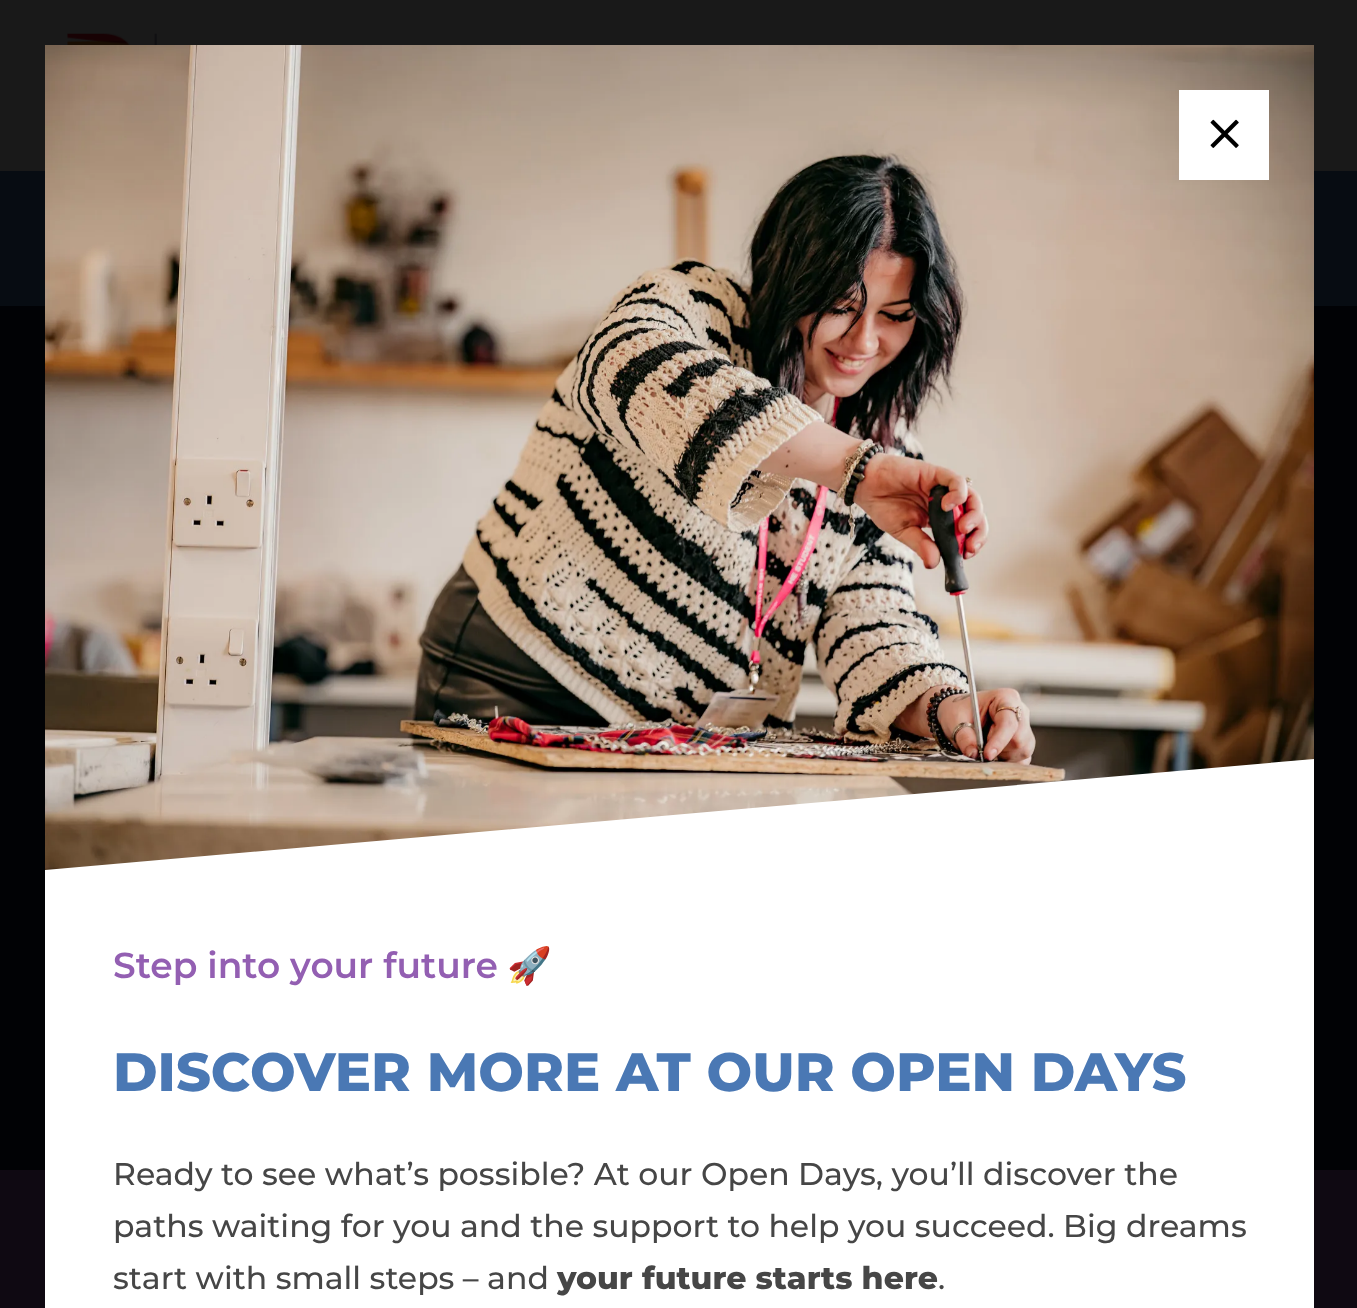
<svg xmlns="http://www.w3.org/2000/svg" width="1357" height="1308">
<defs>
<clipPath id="clip1"><rect x="45" y="45" width="1269" height="826"/></clipPath>
</defs>
<rect width="100%" height="100%" fill="#070c12"/>
<rect width="1357" height="171" fill="#191919"/>
<image x="67" y="33" width="90" height="12" href="media/1.png"/>
<rect y="306" width="1357" height="864" fill="#010205"/>
<rect y="1170" width="1357" height="138" fill="#0f0912"/>
<rect x="45" y="871" width="1269" height="437" fill="#fff"/>
<image x="45" y="45" width="1269" height="825" href="media/3.png"/>
<rect x="1179" y="90" width="90" height="90" fill="#fff"/>
<image x="1210" y="119" width="29" height="29" href="media/2.png"/>
<g clip-path="url(#clip1)">
<path d="M45 870l1269-111v225l-1269 111z" fill="#fff"/>
</g>
<text x="113" y="978" style="font-family:Montserrat;font-size:36px;font-weight:600;fill:#935fb2">Step into your future</text>
<text x="507" y="978" style="font-family:Noto Color Emoji;font-size:36px;font-weight:bold;fill:#935fb2">🚀</text>
<text x="113" y="1091" style="font-family:Montserrat;font-size:54px;font-weight:800;fill:#4a78b4">DISCOVER MORE AT OUR OPEN DAYS</text>
<text x="113" y="1185" style="font-family:Montserrat;font-size:31.5px;font-weight:500;fill:#464646">Ready to see what’s possible? At our Open Days, you’ll discover the</text>
<text x="113" y="1237" style="font-family:Montserrat;font-size:31.5px;font-weight:500;fill:#464646">paths waiting for you and the support to help you succeed. Big dreams</text>
<text x="113" y="1289" style="font-family:Montserrat;font-size:31.5px;font-weight:500;fill:#464646">start with small steps – and</text>
<text x="557" y="1289" style="font-family:Montserrat;font-size:31.5px;font-weight:800;fill:#464646">your future starts here</text>
<text x="938" y="1289" style="font-family:Montserrat;font-size:31.5px;font-weight:500;fill:#464646">.</text>
</svg>
